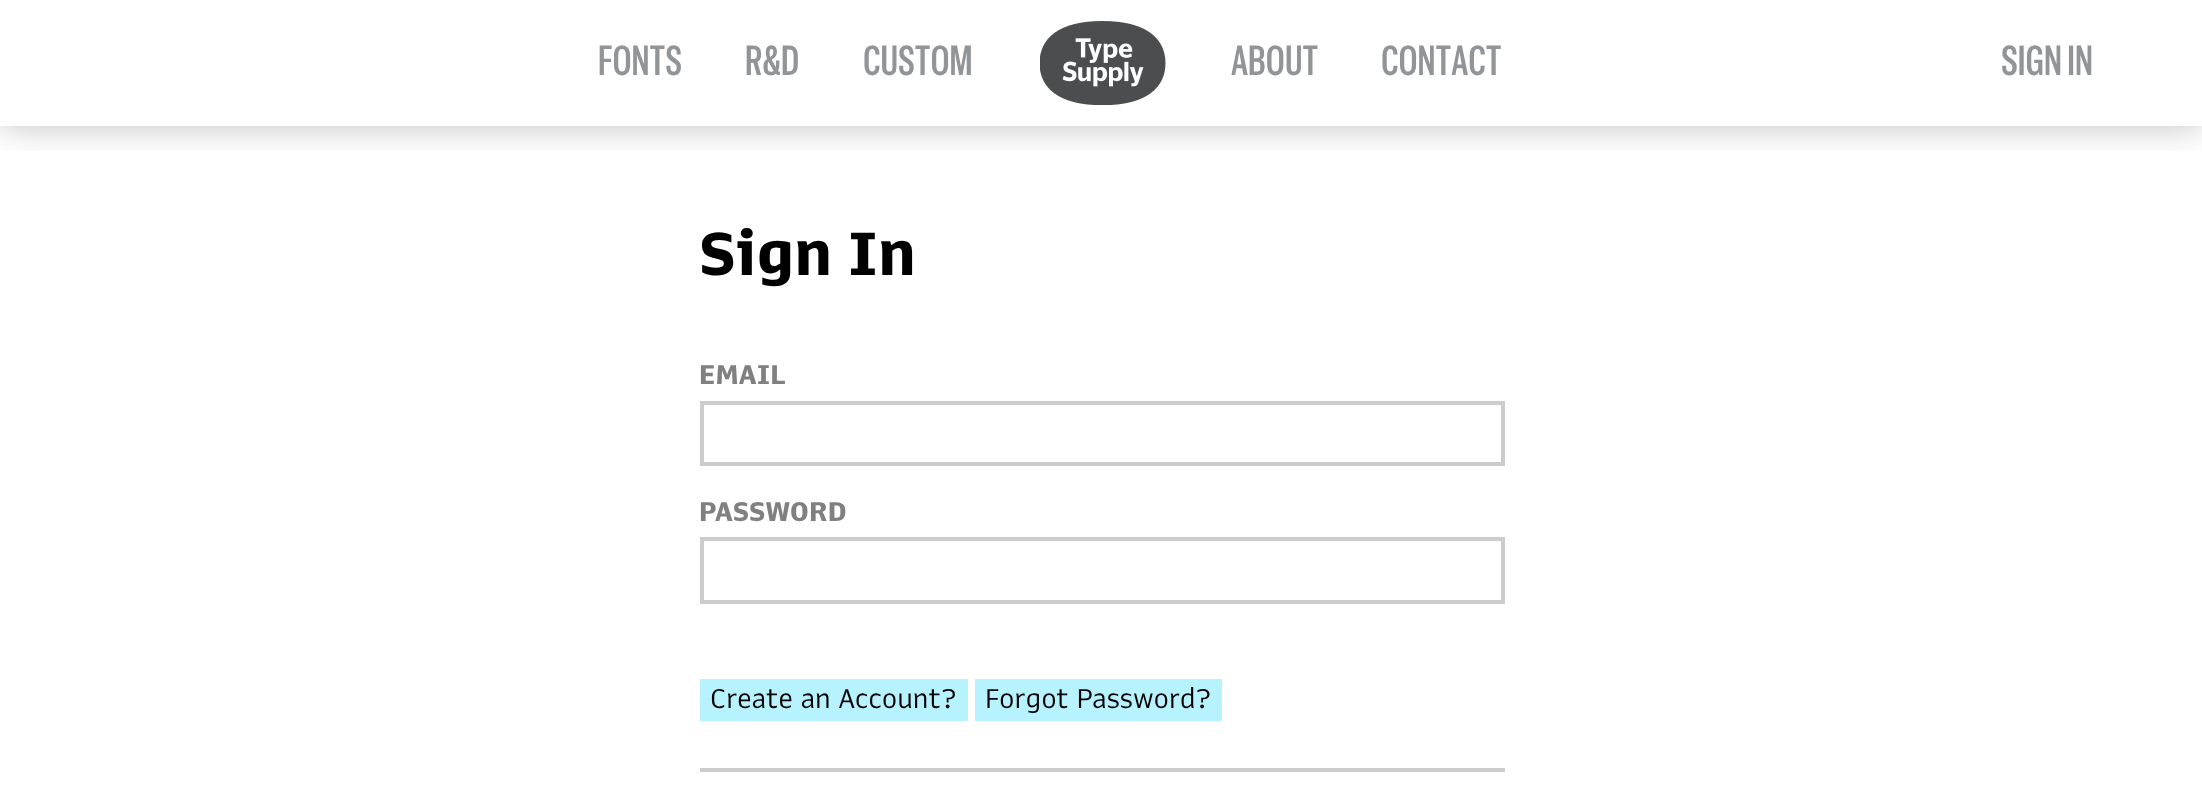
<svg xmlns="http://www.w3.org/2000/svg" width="2202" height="803">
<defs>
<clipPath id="clip1"><rect x="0" y="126" width="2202" height="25"/></clipPath>
</defs>
<rect width="100%" height="100%" fill="#fff"/>
<g clip-path="url(#clip1)">
<rect width="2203" height="126" fill="#00000040" filter="blur(17.5px)"/>
</g>
<text x="598" y="75" style="font-family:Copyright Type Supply;font-size:42px;font-weight:500;fill:#919598">FONTS</text>
<text x="745" y="75" style="font-family:Copyright Type Supply;font-size:42px;font-weight:500;fill:#919598">R&amp;D</text>
<text x="863" y="75" style="font-family:Copyright Type Supply;font-size:42px;font-weight:500;fill:#919598">CUSTOM</text>
<image x="1040" y="21" width="126" height="84" href="media/1.png"/>
<text x="1231" y="75" style="font-family:Copyright Type Supply;font-size:42px;font-weight:500;fill:#919598">ABOUT</text>
<text x="1381" y="75" style="font-family:Copyright Type Supply;font-size:42px;font-weight:500;fill:#919598">CONTACT</text>
<text x="2001" y="75" style="font-family:Copyright Type Supply;font-size:42px;font-weight:500;fill:#919598">SIGN IN</text>
<text x="699" y="275" style="font-family:Copyright Type Supply;font-size:63px;font-weight:bold;fill:#000">Sign In</text>
<text x="699" y="384" style="font-family:Copyright Type Supply;font-size:28px;font-weight:bold;fill:#808080">EMAIL</text>
<rect x="702" y="403" width="801" height="61" fill="none" stroke="#ccc" stroke-width="4"/>
<text x="699" y="521" style="font-family:Copyright Type Supply;font-size:28px;font-weight:bold;fill:#808080">PASSWORD</text>
<rect x="702" y="539" width="801" height="63" fill="none" stroke="#ccc" stroke-width="4"/>
<rect x="700" y="679" width="268" height="42" fill="#b7f3fe"/>
<text x="710" y="708" style="font-family:Copyright Type Supply;font-size:28px;fill:#000">Create an Account?</text>
<rect x="975" y="679" width="247" height="42" fill="#b7f3fe"/>
<text x="985" y="708" style="font-family:Copyright Type Supply;font-size:28px;fill:#000">Forgot Password?</text>
<rect x="700" y="768" width="805" height="4" fill="#ccc"/>
</svg>
